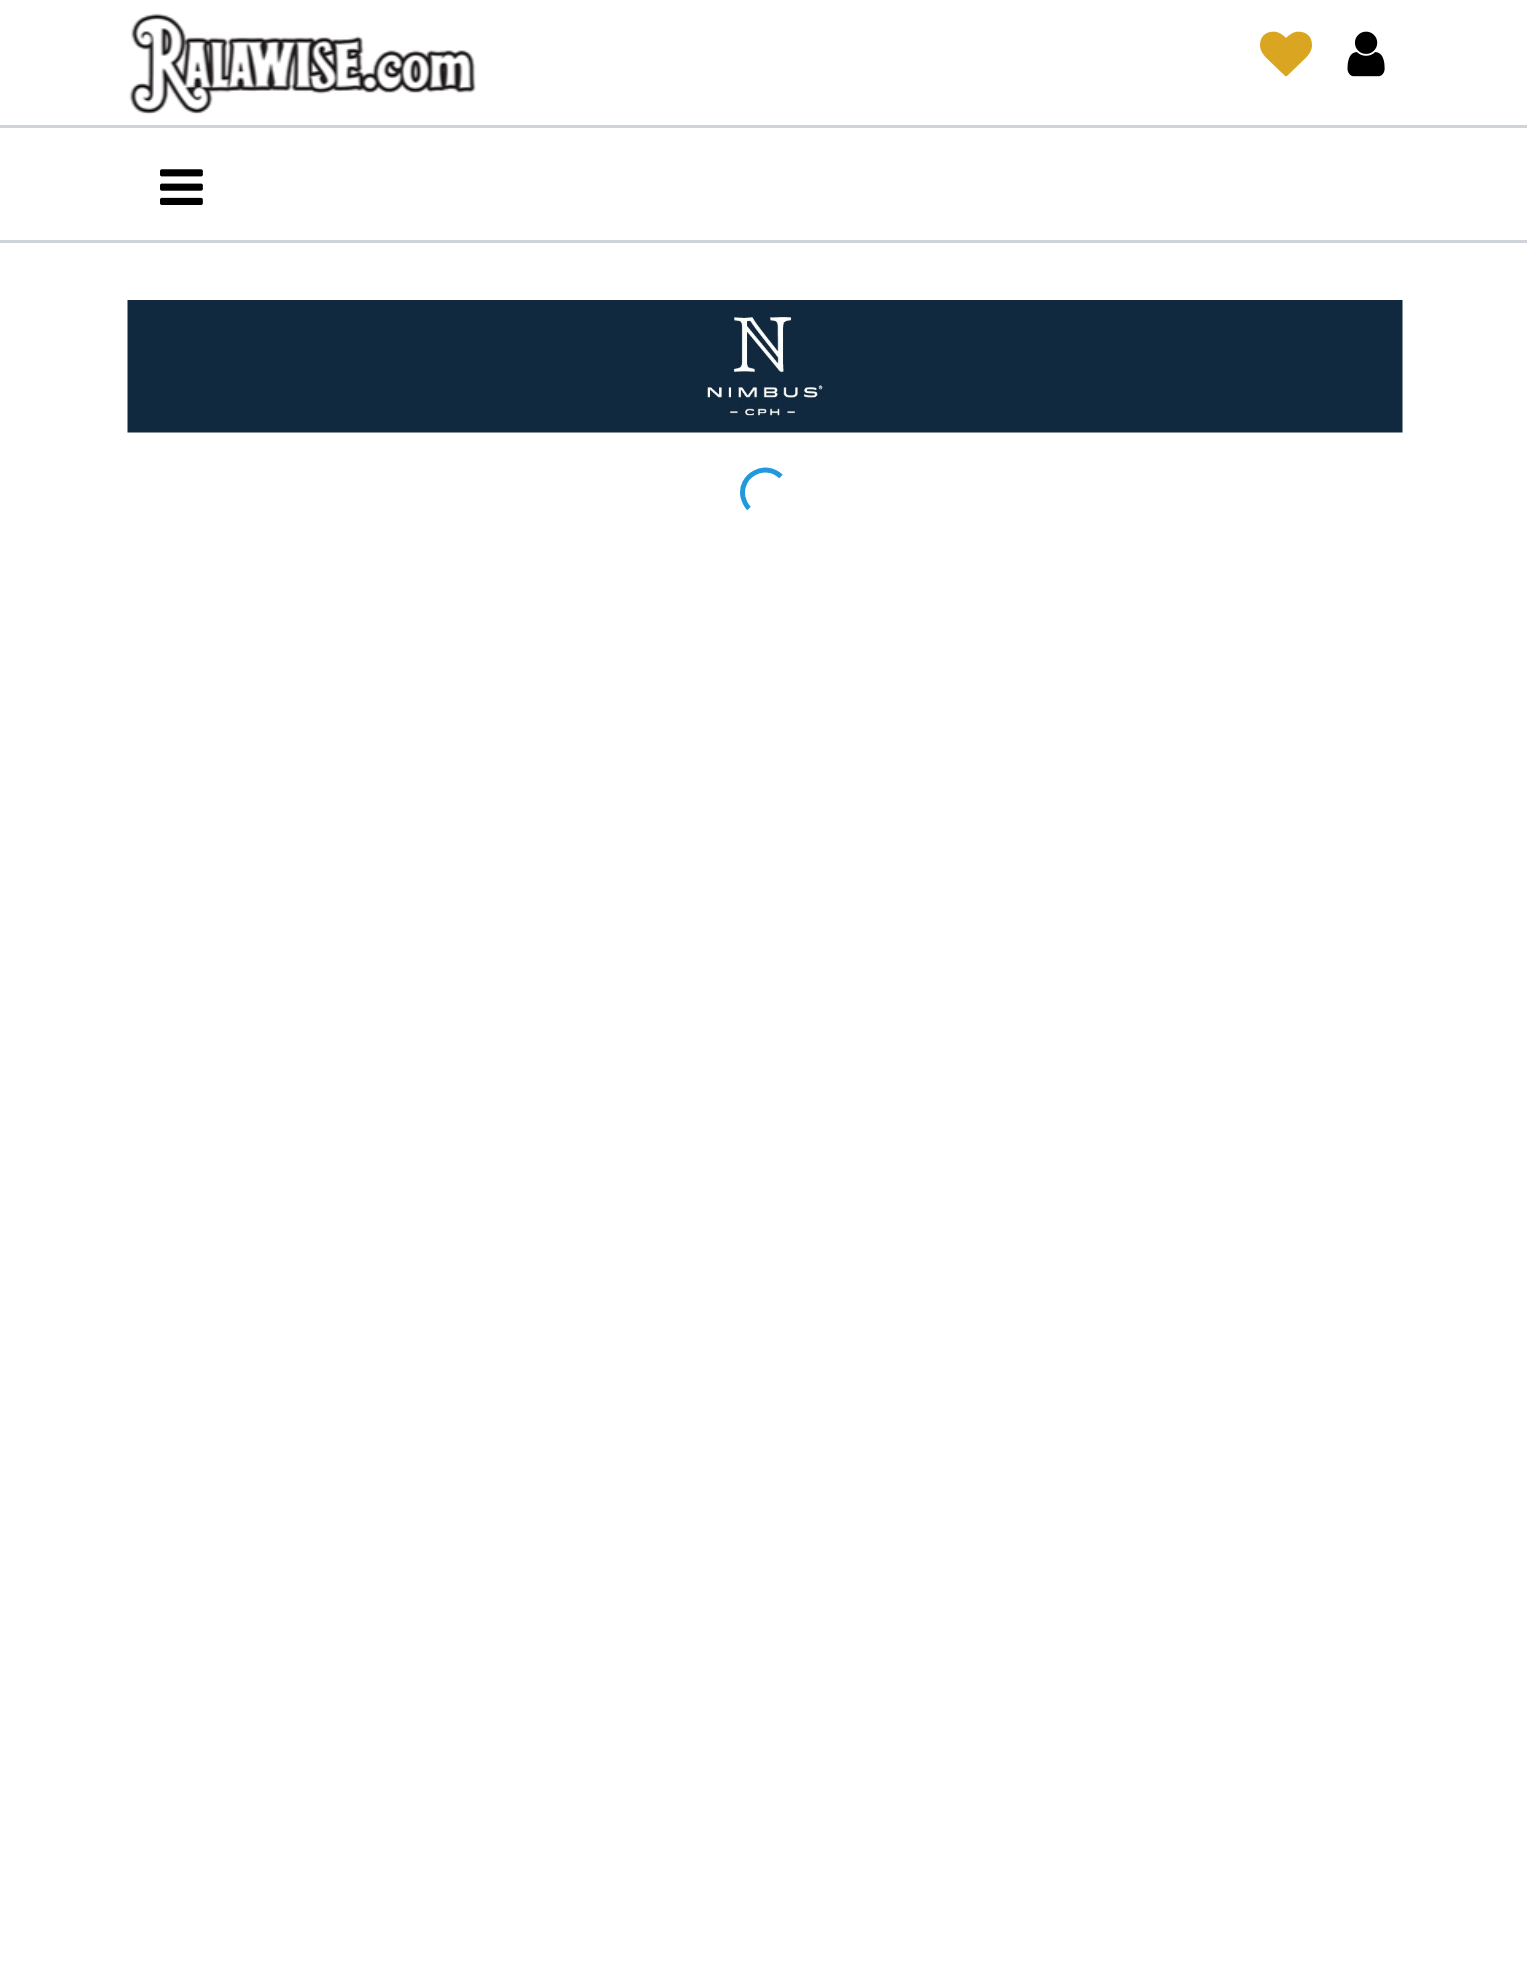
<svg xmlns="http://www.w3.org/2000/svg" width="1527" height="1978">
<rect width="100%" height="100%" fill="#fff"/>
<rect y="240" width="1527" height="3" fill="#ced4da"/>
<image x="129" y="13" width="347" height="102" href="media/1.png"/>
<image x="1260" y="31" width="52" height="46" href="media/2.png"/>
<image x="1347" y="31" width="38" height="46" href="media/3.png"/>
<image x="160" y="169" width="43" height="36" href="media/4.png"/>
<rect y="125" width="1527" height="3" fill="#ced4da"/>
<image x="127" y="300" width="1276" height="133" href="media/5.png"/>
<path d="M749 508.5c-3-3-5-7.5-6-11.5c-4.5-21.5 22.5-36 38-20.5" fill="none" stroke="#29d" stroke-width="5"/>
</svg>
